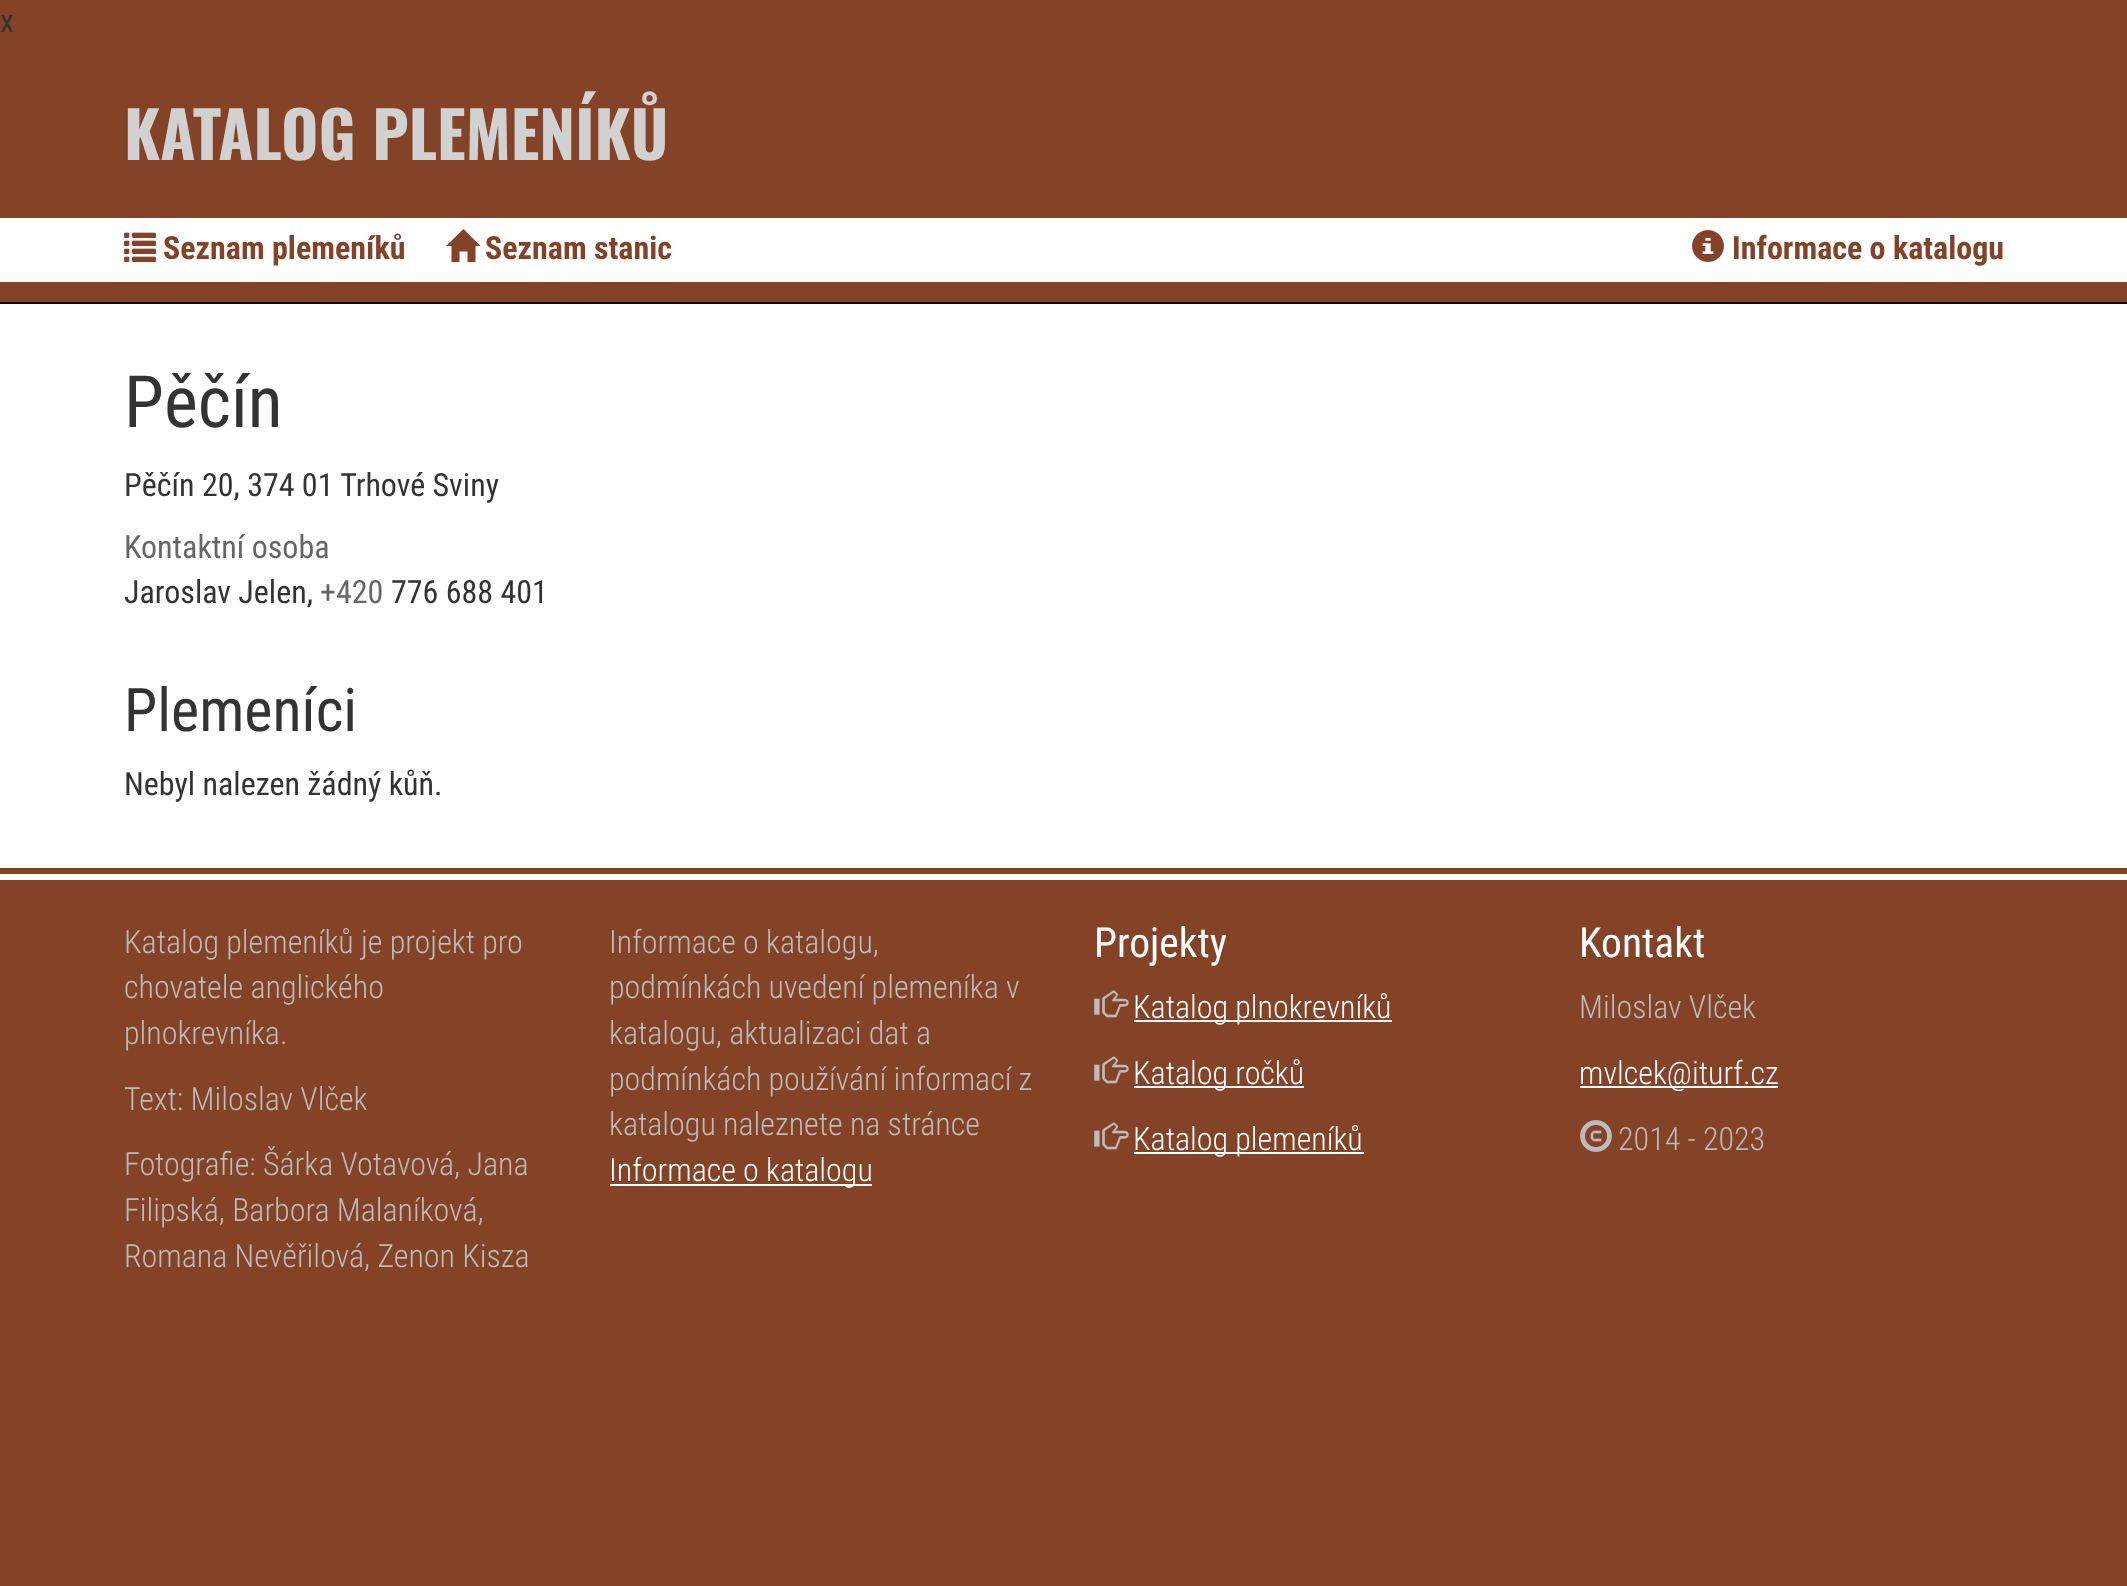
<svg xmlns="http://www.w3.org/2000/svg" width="2127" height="1586">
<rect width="100%" height="100%" fill="#844327"/>
<text x="0" y="32" style="font-family:Roboto Condensed;font-size:32px;fill:#333">x</text>
<rect y="302" width="2127" height="2" fill="#080808"/>
<text x="124" y="160" style="font-family:Oswald;font-size:64px;font-weight:bold;fill:#d1d1d1">KATALOG PLEMENÍKŮ</text>
<rect y="218" width="2127" height="64" fill="#fff"/>
<image x="124" y="232" width="32" height="30" href="media/1.png"/>
<text x="163" y="259" style="font-family:Roboto Condensed;font-size:32px;font-weight:bold;fill:#844327">Seznam plemeníků</text>
<path d="M446 246l17.5-17l17 17h-5v16h-8v-10.5h-8v10.5h-8v-16z" fill="#844327"/>
<text x="485" y="259" style="font-family:Roboto Condensed;font-size:32px;font-weight:bold;fill:#844327">Seznam stanic</text>
<image x="1692" y="230" width="32" height="32" href="media/2.png"/>
<text x="1732" y="259" style="font-family:Roboto Condensed;font-size:32px;font-weight:bold;fill:#844327">Informace o katalogu</text>
<rect y="304" width="2127" height="564" fill="#fff"/>
<text x="124" y="427" style="font-family:Roboto Condensed;font-size:72px;fill:#333">Pěčín</text>
<text x="124" y="496" style="font-family:Roboto Condensed;font-size:32px;fill:#333">Pěčín 20, 374 01 Trhové Sviny</text>
<text x="124" y="558" style="font-family:Roboto Condensed;font-size:32px;fill:#666">Kontaktní osoba</text>
<text x="124" y="603" style="font-family:Roboto Condensed;font-size:32px;fill:#333">Jaroslav Jelen,</text>
<text x="320" y="603" style="font-family:Roboto Condensed;font-size:32px;fill:#666">+420</text>
<text x="391" y="603" style="font-family:Roboto Condensed;font-size:32px;fill:#333">776 688 401</text>
<text x="124" y="731" style="font-family:Roboto Condensed;font-size:60px;fill:#333">Plemeníci</text>
<text x="124" y="795" style="font-family:Roboto Condensed;font-size:32px;fill:#333">Nebyl nalezen žádný kůň.</text>
<rect y="874" width="2127" height="6" fill="#fff"/>
<text x="124" y="953" style="font-family:Roboto Condensed;font-size:32px;font-weight:300;fill:#bbb">Katalog plemeníků je projekt pro</text>
<text x="124" y="998" style="font-family:Roboto Condensed;font-size:32px;font-weight:300;fill:#bbb">chovatele anglického</text>
<text x="124" y="1044" style="font-family:Roboto Condensed;font-size:32px;font-weight:300;fill:#bbb">plnokrevníka.</text>
<text x="124" y="1110" style="font-family:Roboto Condensed;font-size:32px;font-weight:300;fill:#bbb">Text: Miloslav Vlček</text>
<text x="124" y="1175" style="font-family:Roboto Condensed;font-size:32px;font-weight:300;fill:#bbb">Fotografie: Šárka Votavová, Jana</text>
<text x="124" y="1221" style="font-family:Roboto Condensed;font-size:32px;font-weight:300;fill:#bbb">Filipská, Barbora Malaníková,</text>
<text x="124" y="1267" style="font-family:Roboto Condensed;font-size:32px;font-weight:300;fill:#bbb">Romana Nevěřilová, Zenon Kisza</text>
<text x="609" y="953" style="font-family:Roboto Condensed;font-size:32px;font-weight:300;fill:#bbb">Informace o katalogu,</text>
<text x="609" y="998" style="font-family:Roboto Condensed;font-size:32px;font-weight:300;fill:#bbb">podmínkách uvedení plemeníka v</text>
<text x="609" y="1044" style="font-family:Roboto Condensed;font-size:32px;font-weight:300;fill:#bbb">katalogu, aktualizaci dat a</text>
<text x="609" y="1090" style="font-family:Roboto Condensed;font-size:32px;font-weight:300;fill:#bbb">podmínkách používání informací z</text>
<text x="609" y="1135" style="font-family:Roboto Condensed;font-size:32px;font-weight:300;fill:#bbb">katalogu naleznete na stránce</text>
<rect x="610" y="1184" width="262" height="2" fill="#fff"/>
<text x="609" y="1181" style="font-family:Roboto Condensed;font-size:32px;font-weight:300;fill:#fff">Informace o katalogu</text>
<text x="1094" y="957" style="font-family:Roboto Condensed;font-size:41.5px;fill:#fff">Projekty</text>
<image x="1094" y="990" width="35" height="28" href="media/3.png"/>
<rect x="1134" y="1020" width="258" height="2" fill="#fff"/>
<text x="1133" y="1018" style="font-family:Roboto Condensed;font-size:32px;font-weight:300;fill:#fff">Katalog plnokrevníků</text>
<image x="1094" y="1056" width="35" height="28" href="media/3.png"/>
<rect x="1134" y="1086" width="170" height="2" fill="#fff"/>
<text x="1133" y="1084" style="font-family:Roboto Condensed;font-size:32px;font-weight:300;fill:#fff">Katalog ročků</text>
<image x="1094" y="1122" width="35" height="28" href="media/3.png"/>
<rect x="1134" y="1152" width="230" height="2" fill="#fff"/>
<text x="1133" y="1150" style="font-family:Roboto Condensed;font-size:32px;font-weight:300;fill:#fff">Katalog plemeníků</text>
<text x="1579" y="957" style="font-family:Roboto Condensed;font-size:41.5px;fill:#fff">Kontakt</text>
<text x="1579" y="1018" style="font-family:Roboto Condensed;font-size:32px;font-weight:300;fill:#bbb">Miloslav Vlček</text>
<rect x="1580" y="1086" width="198" height="2" fill="#fff"/>
<text x="1579" y="1084" style="font-family:Roboto Condensed;font-size:32px;font-weight:300;fill:#fff">mvlcek@iturf.cz</text>
<image x="1580" y="1120" width="32" height="32" href="media/4.png"/>
<text x="1618" y="1150" style="font-family:Roboto Condensed;font-size:32px;font-weight:300;fill:#bbb">2014 - 2023</text>
</svg>
